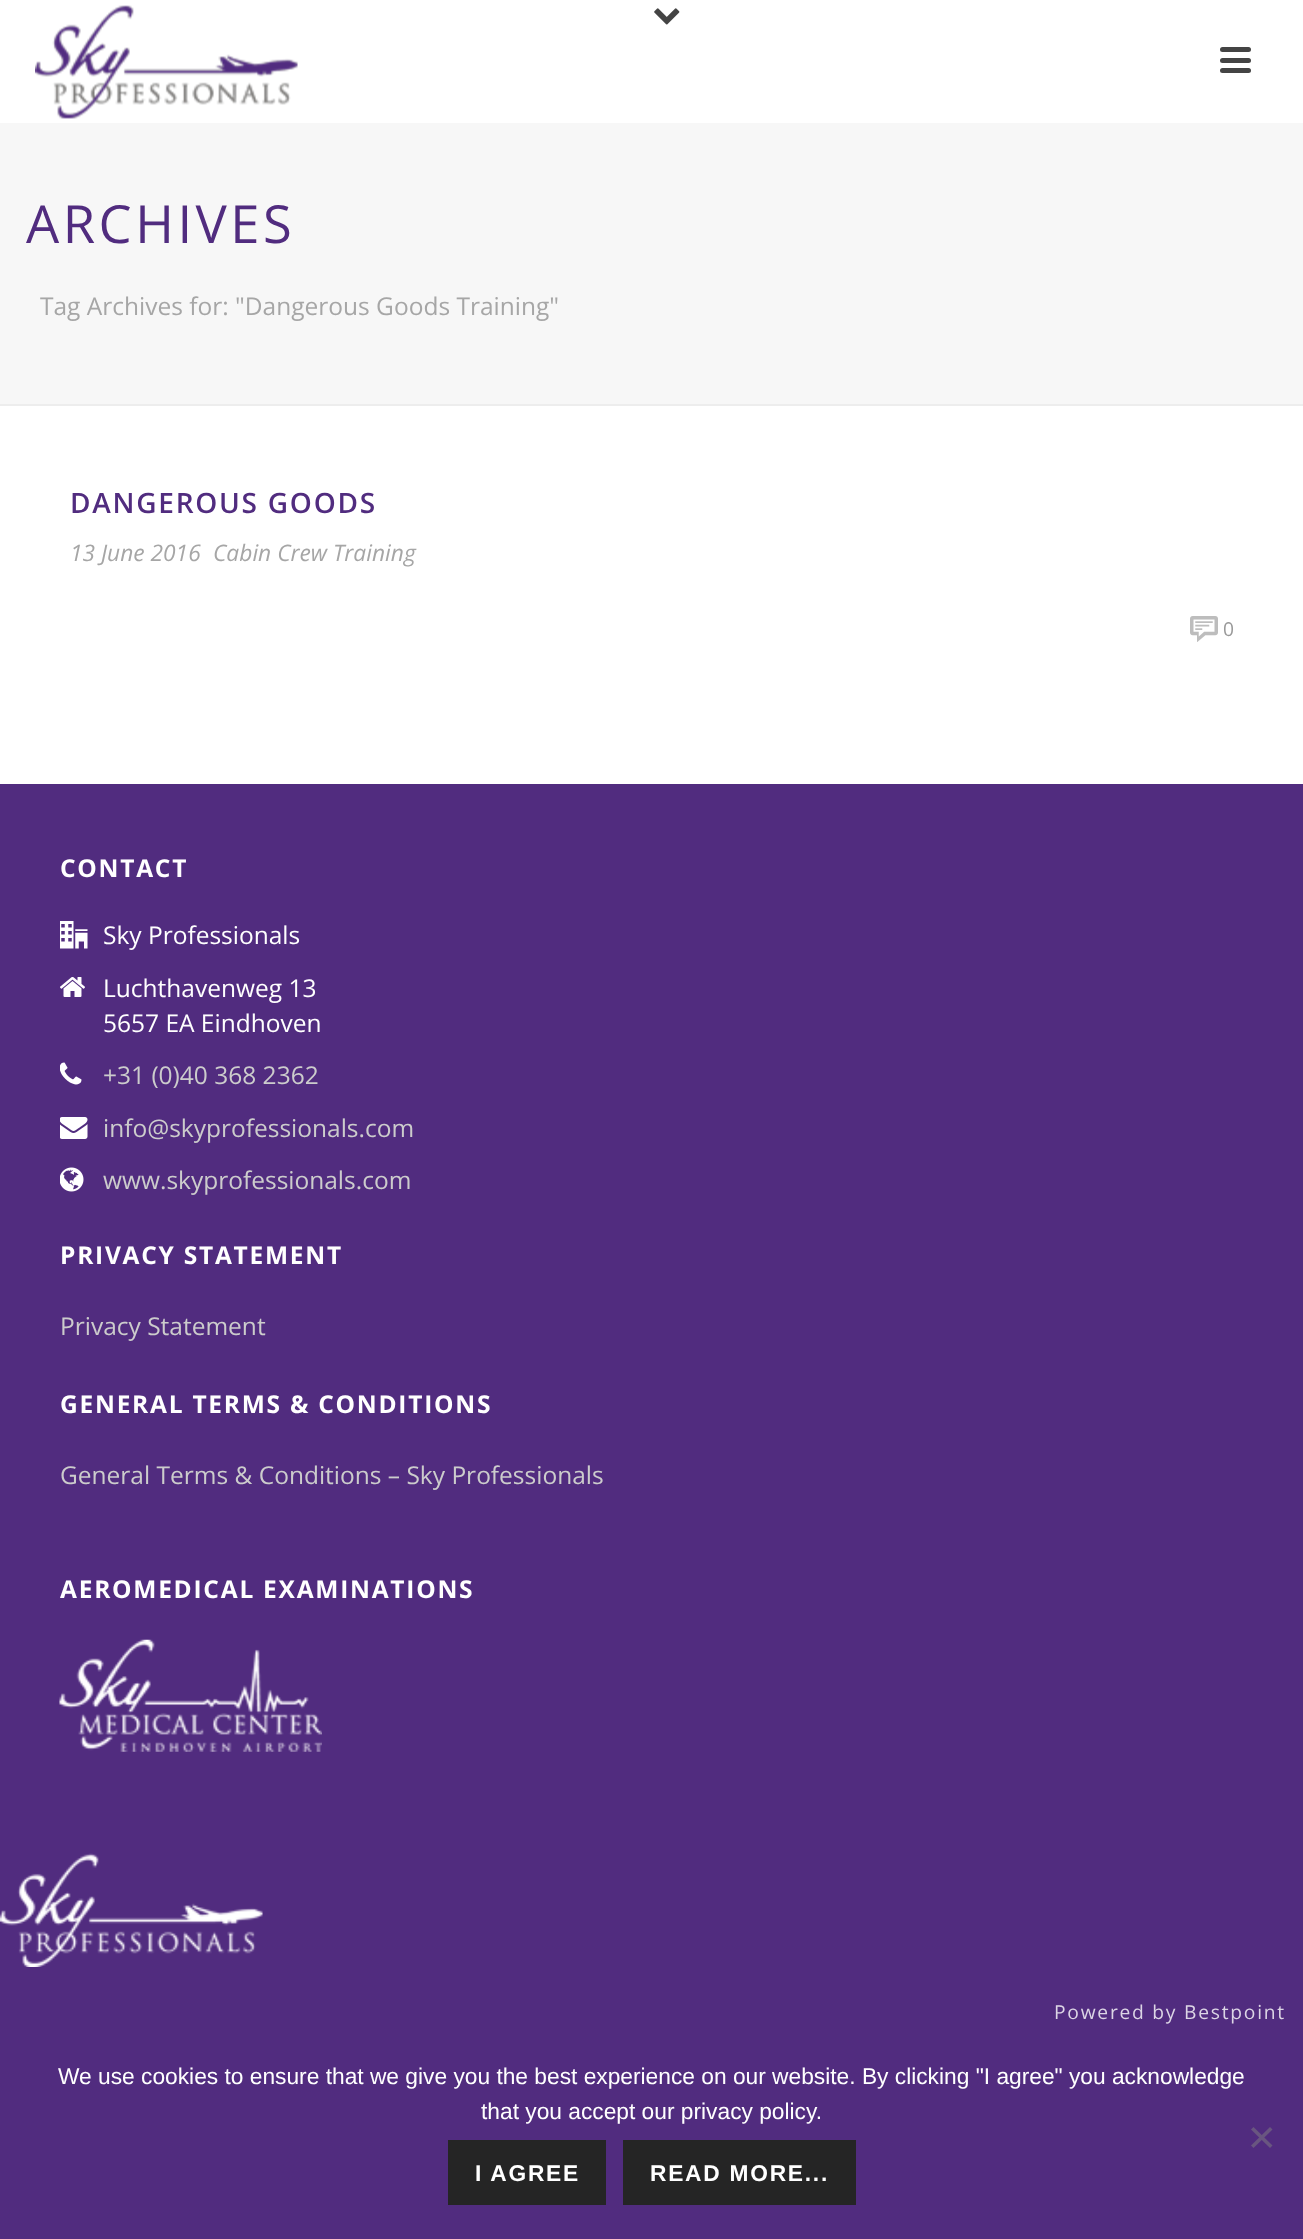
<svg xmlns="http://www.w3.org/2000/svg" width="1303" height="2239">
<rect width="100%" height="100%" fill="#512c7f"/>
<rect y="123" width="1303" height="281" fill="#f7f7f7"/>
<rect y="404" width="1303" height="2" fill="#ededed"/>
<rect width="1303" height="123" fill="#fff"/>
<image x="35" y="5" width="263" height="114" href="media/1.png"/>
<rect x="1220" y="47" width="31" height="5" rx="2.5" fill="#444"/>
<rect x="1220" y="58" width="31" height="5" rx="2.5" fill="#444"/>
<rect x="1220" y="68" width="31" height="5" rx="2.5" fill="#444"/>
<image x="654" y="8" width="26" height="17" href="media/2.png"/>
<text x="26" y="243" style="font-family:Open Sans;font-size:52.5px;letter-spacing:3.5px;fill:#512c7f">ARCHIVES</text>
<text x="40" y="315" style="font-family:Open Sans;font-size:24.5px;fill:#a6a6a6">Tag Archives for: "Dangerous Goods Training"</text>
<rect y="406" width="1303" height="378" fill="#fff"/>
<text x="70" y="513" style="font-family:Open Sans;font-size:28px;font-weight:600;letter-spacing:1.75px;fill:#512c7f">DANGEROUS GOODS</text>
<text x="70" y="561" style="font-family:Open Sans;font-size:22.75px;font-style:italic;fill:#a6a6a6">13 June 2016</text>
<text x="213" y="561" style="font-family:Open Sans;font-size:22.75px;font-style:italic;fill:#a6a6a6">Cabin Crew Training</text>
<image x="1190" y="616" width="28" height="26" href="media/3.png"/>
<text x="1223" y="636" style="font-family:Open Sans;font-size:19.25px;fill:#999">0</text>
<text x="60" y="877" style="font-family:Open Sans;font-size:24.5px;font-weight:bold;letter-spacing:1.75px;fill:#fff">CONTACT</text>
<image x="60" y="921" width="28" height="28" href="media/4.png"/>
<text x="103" y="944" style="font-family:Open Sans;font-size:24.5px;fill:#fff">Sky Professionals</text>
<image x="60" y="977" width="25" height="20" href="media/5.png"/>
<text x="103" y="997" style="font-family:Open Sans;font-size:24.5px;fill:#fff">Luchthavenweg 13</text>
<text x="103" y="1032" style="font-family:Open Sans;font-size:24.5px;fill:#fff">5657 EA Eindhoven</text>
<image x="60" y="1062" width="22" height="23" href="media/6.png"/>
<text x="103" y="1084" style="font-family:Open Sans;font-size:24.5px;fill:#ccc">+31 (0)40 368 2362</text>
<image x="60" y="1117" width="28" height="22" href="media/7.png"/>
<text x="103" y="1137" style="font-family:Open Sans;font-size:24.5px;fill:#ccc">info@skyprofessionals.com</text>
<image x="60" y="1167" width="24" height="25" href="media/8.png"/>
<text x="103" y="1189" style="font-family:Open Sans;font-size:24.5px;fill:#ccc">www.skyprofessionals.com</text>
<text x="60" y="1264" style="font-family:Open Sans;font-size:24.5px;font-weight:bold;letter-spacing:1.75px;fill:#fff">PRIVACY STATEMENT</text>
<text x="60" y="1335" style="font-family:Open Sans;font-size:24.5px;fill:#ccc">Privacy Statement</text>
<text x="60" y="1413" style="font-family:Open Sans;font-size:24.5px;font-weight:bold;letter-spacing:1.75px;fill:#fff">GENERAL TERMS &amp; CONDITIONS</text>
<text x="60" y="1484" style="font-family:Open Sans;font-size:24.5px;fill:#ccc">General Terms &amp; Conditions – Sky Professionals</text>
<text x="60" y="1598" style="font-family:Open Sans;font-size:24.5px;font-weight:bold;letter-spacing:1.75px;fill:#fff">AEROMEDICAL EXAMINATIONS</text>
<image x="59" y="1639" width="263" height="113" href="media/9.png"/>
<image x="0" y="1853" width="263" height="114" href="media/10.png"/>
<text x="1054" y="2019" style="font-family:Open Sans;font-size:19.25px;letter-spacing:1.75px;fill:#dcd5e5">Powered by Bestpoint</text>
<text x="58" y="2084" style="font-family:Liberation Sans;font-size:22.75px;fill:#fff">We use cookies to ensure that we give you the best experience on our website. By clicking "I agree" you acknowledge</text>
<text x="481" y="2119" style="font-family:Liberation Sans;font-size:22.75px;fill:#fff">that you accept our privacy policy.</text>
<path d="M1270 2127l2.5 2.5l-19 18.5l-2.5-2.5z" fill="#695680"/>
<path d="M1251 2129.5l2.5-2.5l19 18.5l-2.5 2.5z" fill="#695680"/>
<rect x="448" y="2140" width="158" height="65" fill="#252525"/>
<text x="475" y="2181" style="font-family:Liberation Sans;font-size:22.75px;font-weight:bold;letter-spacing:1.75px;fill:#fff">I AGREE</text>
<rect x="623" y="2140" width="233" height="65" fill="#252525"/>
<text x="650" y="2181" style="font-family:Liberation Sans;font-size:22.75px;font-weight:bold;letter-spacing:1.75px;fill:#fff">READ MORE...</text>
</svg>
